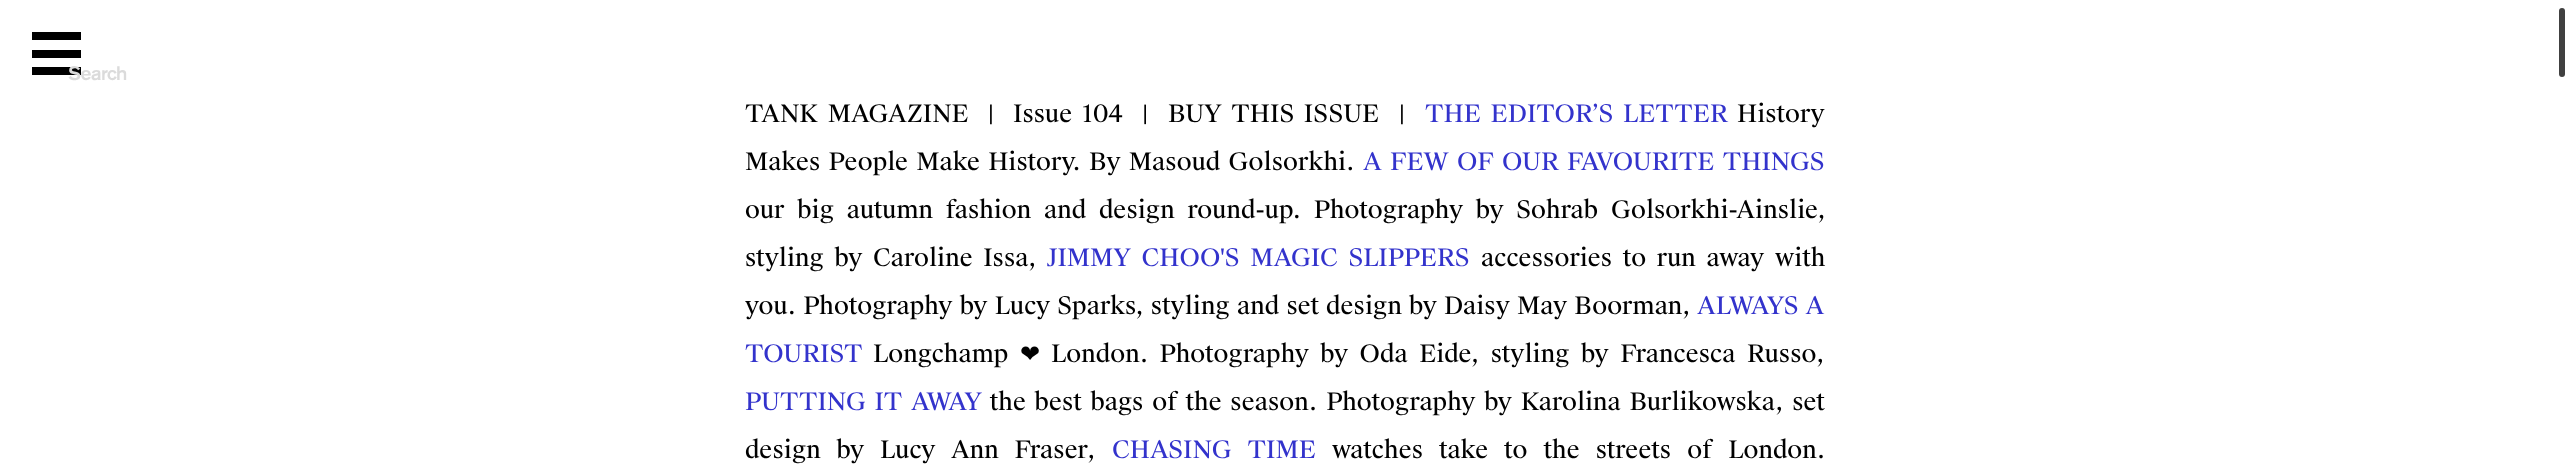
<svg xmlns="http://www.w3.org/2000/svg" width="2569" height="470">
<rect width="100%" height="100%" fill="#fff"/>
<rect x="32" y="32" width="49" height="8" fill="#000"/>
<rect x="32" y="50" width="49" height="8" fill="#000"/>
<rect x="32" y="67" width="49" height="8" fill="#000"/>
<text x="68" y="80" style="font-family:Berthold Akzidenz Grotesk;font-size:19.5px;font-weight:500;letter-spacing:-0.5px;fill:#dbdbdb">Search</text>
<rect x="2559" y="8" width="6" height="69" rx="3" fill="#404040"/>
<text x="745" y="122" word-spacing="3.5" style="font-family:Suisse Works;font-size:24px;fill:#000" xml:space="preserve">TANK MAGAZINE  |</text>
<text x="1013" y="122" word-spacing="3.5" style="font-family:Suisse Works;font-size:24px;fill:#000" xml:space="preserve">Issue 104  |</text>
<text x="1168" y="122" word-spacing="3.5" style="font-family:Suisse Works;font-size:24px;fill:#000">BUY THIS ISSUE</text>
<text x="1399" y="122" style="font-family:Suisse Works;font-size:24px;fill:#000">|</text>
<text x="1425" y="122" word-spacing="3.5" style="font-family:Suisse Works;font-size:24px;fill:#33c">THE EDITOR’S LETTER</text>
<text x="1737" y="122" style="font-family:Suisse Works;font-size:24px;fill:#000">History</text>
<text x="745" y="170" word-spacing="2" style="font-family:Suisse Works;font-size:24px;fill:#000">Makes People Make History. By Masoud Golsorkhi</text>
<text x="1346" y="170" style="font-family:Suisse Works;font-size:24px;fill:#000">.</text>
<text x="1363" y="170" word-spacing="2" style="font-family:Suisse Works;font-size:24px;fill:#33c">A FEW OF OUR FAVOURITE THINGS</text>
<text x="745" y="218" word-spacing="6.5" style="font-family:Suisse Works;font-size:24px;fill:#000">our big autumn fashion and design round-up. Photography by Sohrab Golsorkhi-Ainslie,</text>
<text x="745" y="266" word-spacing="4.5" style="font-family:Suisse Works;font-size:24px;fill:#000">styling by Caroline Issa</text>
<text x="1028" y="266" style="font-family:Suisse Works;font-size:24px;fill:#000">,</text>
<text x="1047" y="266" word-spacing="4.5" style="font-family:Suisse Works;font-size:24px;fill:#33c">JIMMY CHOO'S MAGIC SLIPPERS</text>
<text x="1481" y="266" word-spacing="4.5" style="font-family:Suisse Works;font-size:24px;fill:#000">accessories to run away with</text>
<text x="745" y="314" word-spacing="1" style="font-family:Suisse Works;font-size:24px;fill:#000">you. Photography by Lucy Sparks, styling and set design by Daisy May Boorman</text>
<text x="1682" y="314" style="font-family:Suisse Works;font-size:24px;fill:#000">,</text>
<text x="1697" y="314" word-spacing="1" style="font-family:Suisse Works;font-size:24px;fill:#33c">ALWAYS A</text>
<text x="745" y="362" style="font-family:Suisse Works;font-size:24px;fill:#33c">TOURIST</text>
<text x="873" y="362" style="font-family:Suisse Works;font-size:24px;fill:#000">Longchamp</text>
<text x="1020" y="362" style="font-family:DejaVu Sans;font-size:24px;fill:#000">❤</text>
<text x="1051" y="362" word-spacing="5.25" style="font-family:Suisse Works;font-size:24px;fill:#000">London. Photography by Oda Eide, styling by Francesca Russo</text>
<text x="1816" y="362" style="font-family:Suisse Works;font-size:24px;fill:#000">,</text>
<text x="745" y="410" word-spacing="2.6" style="font-family:Suisse Works;font-size:24px;fill:#33c">PUTTING IT AWAY</text>
<text x="990" y="410" word-spacing="2.6" style="font-family:Suisse Works;font-size:24px;fill:#000">the best bags of the season. Photography by Karolina Burlikowska, set</text>
<text x="745" y="458" word-spacing="9.5" style="font-family:Suisse Works;font-size:24px;fill:#000">design by Lucy Ann Fraser</text>
<text x="1087" y="458" style="font-family:Suisse Works;font-size:24px;fill:#000">,</text>
<text x="1112" y="458" word-spacing="10" style="font-family:Suisse Works;font-size:24px;fill:#33c">CHASING TIME</text>
<text x="1332" y="458" word-spacing="10" style="font-family:Suisse Works;font-size:24px;fill:#000">watches take to the streets of London.</text>
</svg>
